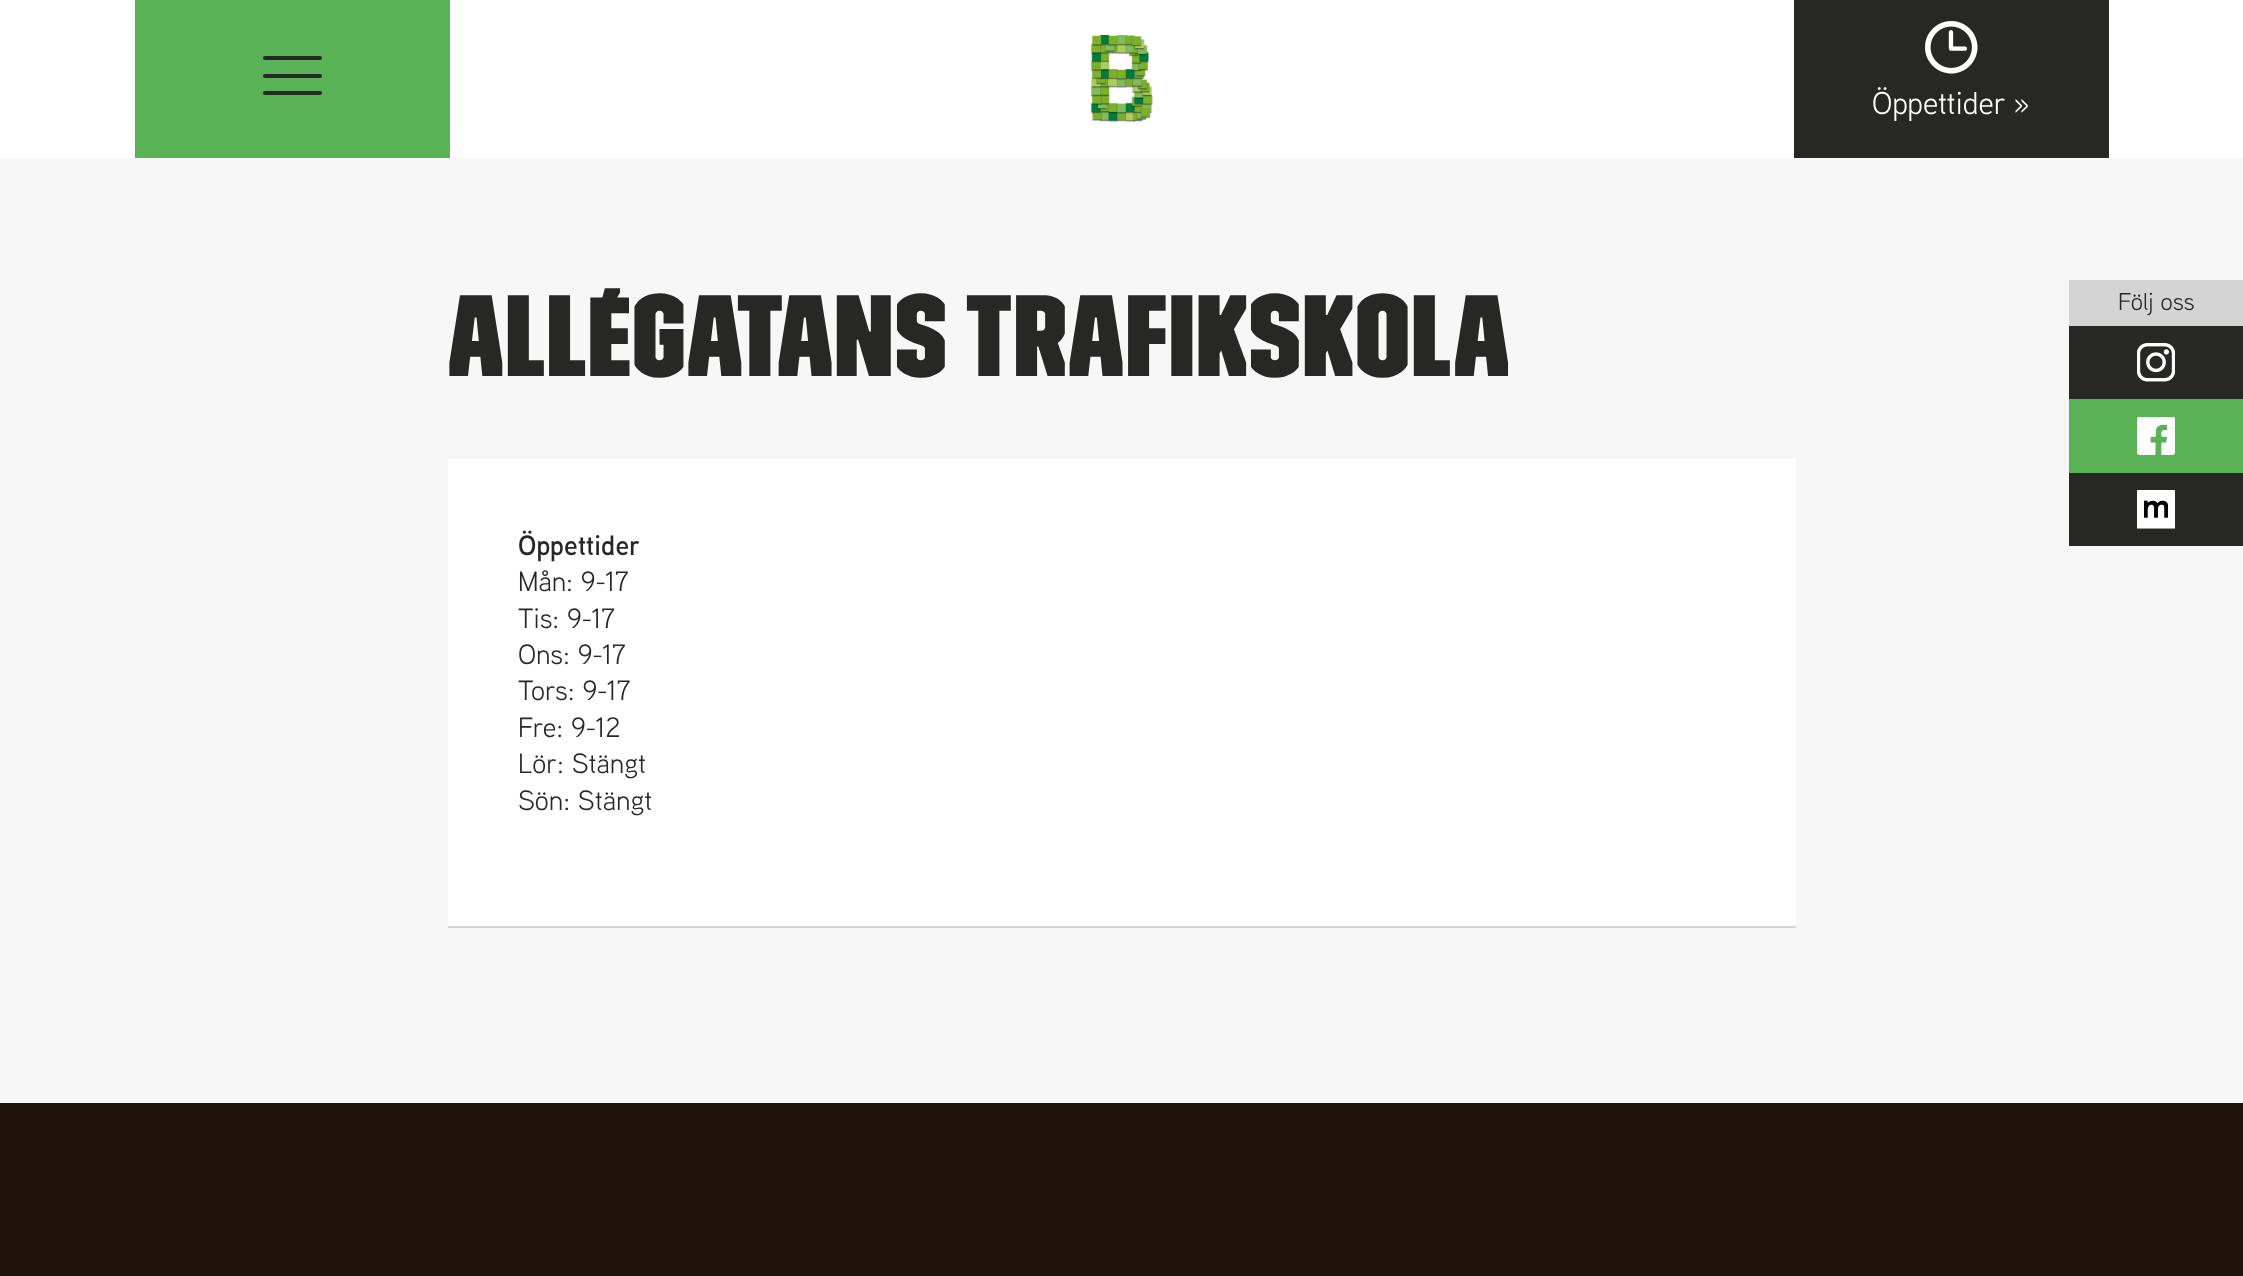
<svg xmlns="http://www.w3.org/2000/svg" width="2243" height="1276">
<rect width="100%" height="100%" fill="#f7f7f7"/>
<rect width="2243" height="158" fill="#fff"/>
<rect x="135" width="315" height="158" fill="#5ab256"/>
<rect x="263" y="56" width="59" height="4" rx="2" fill="#272726"/>
<rect x="263" y="74" width="59" height="4" rx="2" fill="#272726"/>
<rect x="263" y="91" width="59" height="4" rx="2" fill="#272726"/>
<image x="1091" y="35" width="62" height="87" href="media/1.png"/>
<rect x="1794" width="315" height="158" fill="#272726"/>
<image x="1925" y="21" width="53" height="53" href="media/2.png"/>
<text x="1872" y="114" style="font-family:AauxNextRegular;font-size:31.5px;fill:#fff">Öppettider »</text>
<text x="448" y="376" style="font-family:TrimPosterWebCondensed;font-size:115.5px;letter-spacing:1.75px;fill:#272726">ALLÉGATANS TRAFIKSKOLA</text>
<rect x="448" y="459" width="1348" height="467" fill="#fff"/>
<rect x="448" y="926" width="1348" height="2" fill="#d4d4d4"/>
<text x="518" y="555" style="font-family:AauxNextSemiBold;font-size:28px;font-weight:600;fill:#272726">Öppettider</text>
<text x="518" y="591" style="font-family:AauxNextRegular;font-size:28px;fill:#272726">Mån: 9-17</text>
<text x="518" y="628" style="font-family:AauxNextRegular;font-size:28px;fill:#272726">Tis: 9-17</text>
<text x="518" y="664" style="font-family:AauxNextRegular;font-size:28px;fill:#272726">Ons: 9-17</text>
<text x="518" y="700" style="font-family:AauxNextRegular;font-size:28px;fill:#272726">Tors: 9-17</text>
<text x="518" y="737" style="font-family:AauxNextRegular;font-size:28px;fill:#272726">Fre: 9-12</text>
<text x="518" y="773" style="font-family:AauxNextRegular;font-size:28px;fill:#272726">Lör: Stängt</text>
<text x="518" y="810" style="font-family:AauxNextRegular;font-size:28px;fill:#272726">Sön: Stängt</text>
<rect x="2069" y="280" width="174" height="46" fill="#d4d4d4"/>
<text x="2118" y="310" style="font-family:AauxNextRegular;font-size:24.5px;fill:#272726">Följ oss</text>
<rect x="2069" y="326" width="174" height="73" fill="#272726"/>
<image x="2137" y="343" width="38" height="39" href="media/3.png"/>
<rect x="2069" y="399" width="174" height="74" fill="#5ab256"/>
<image x="2137" y="417" width="38" height="38" href="media/4.png"/>
<rect x="2069" y="473" width="174" height="73" fill="#272726"/>
<image x="2137" y="490" width="38" height="39" href="media/5.png"/>
<rect y="1103" width="2243" height="173" fill="#1e140a"/>
</svg>
